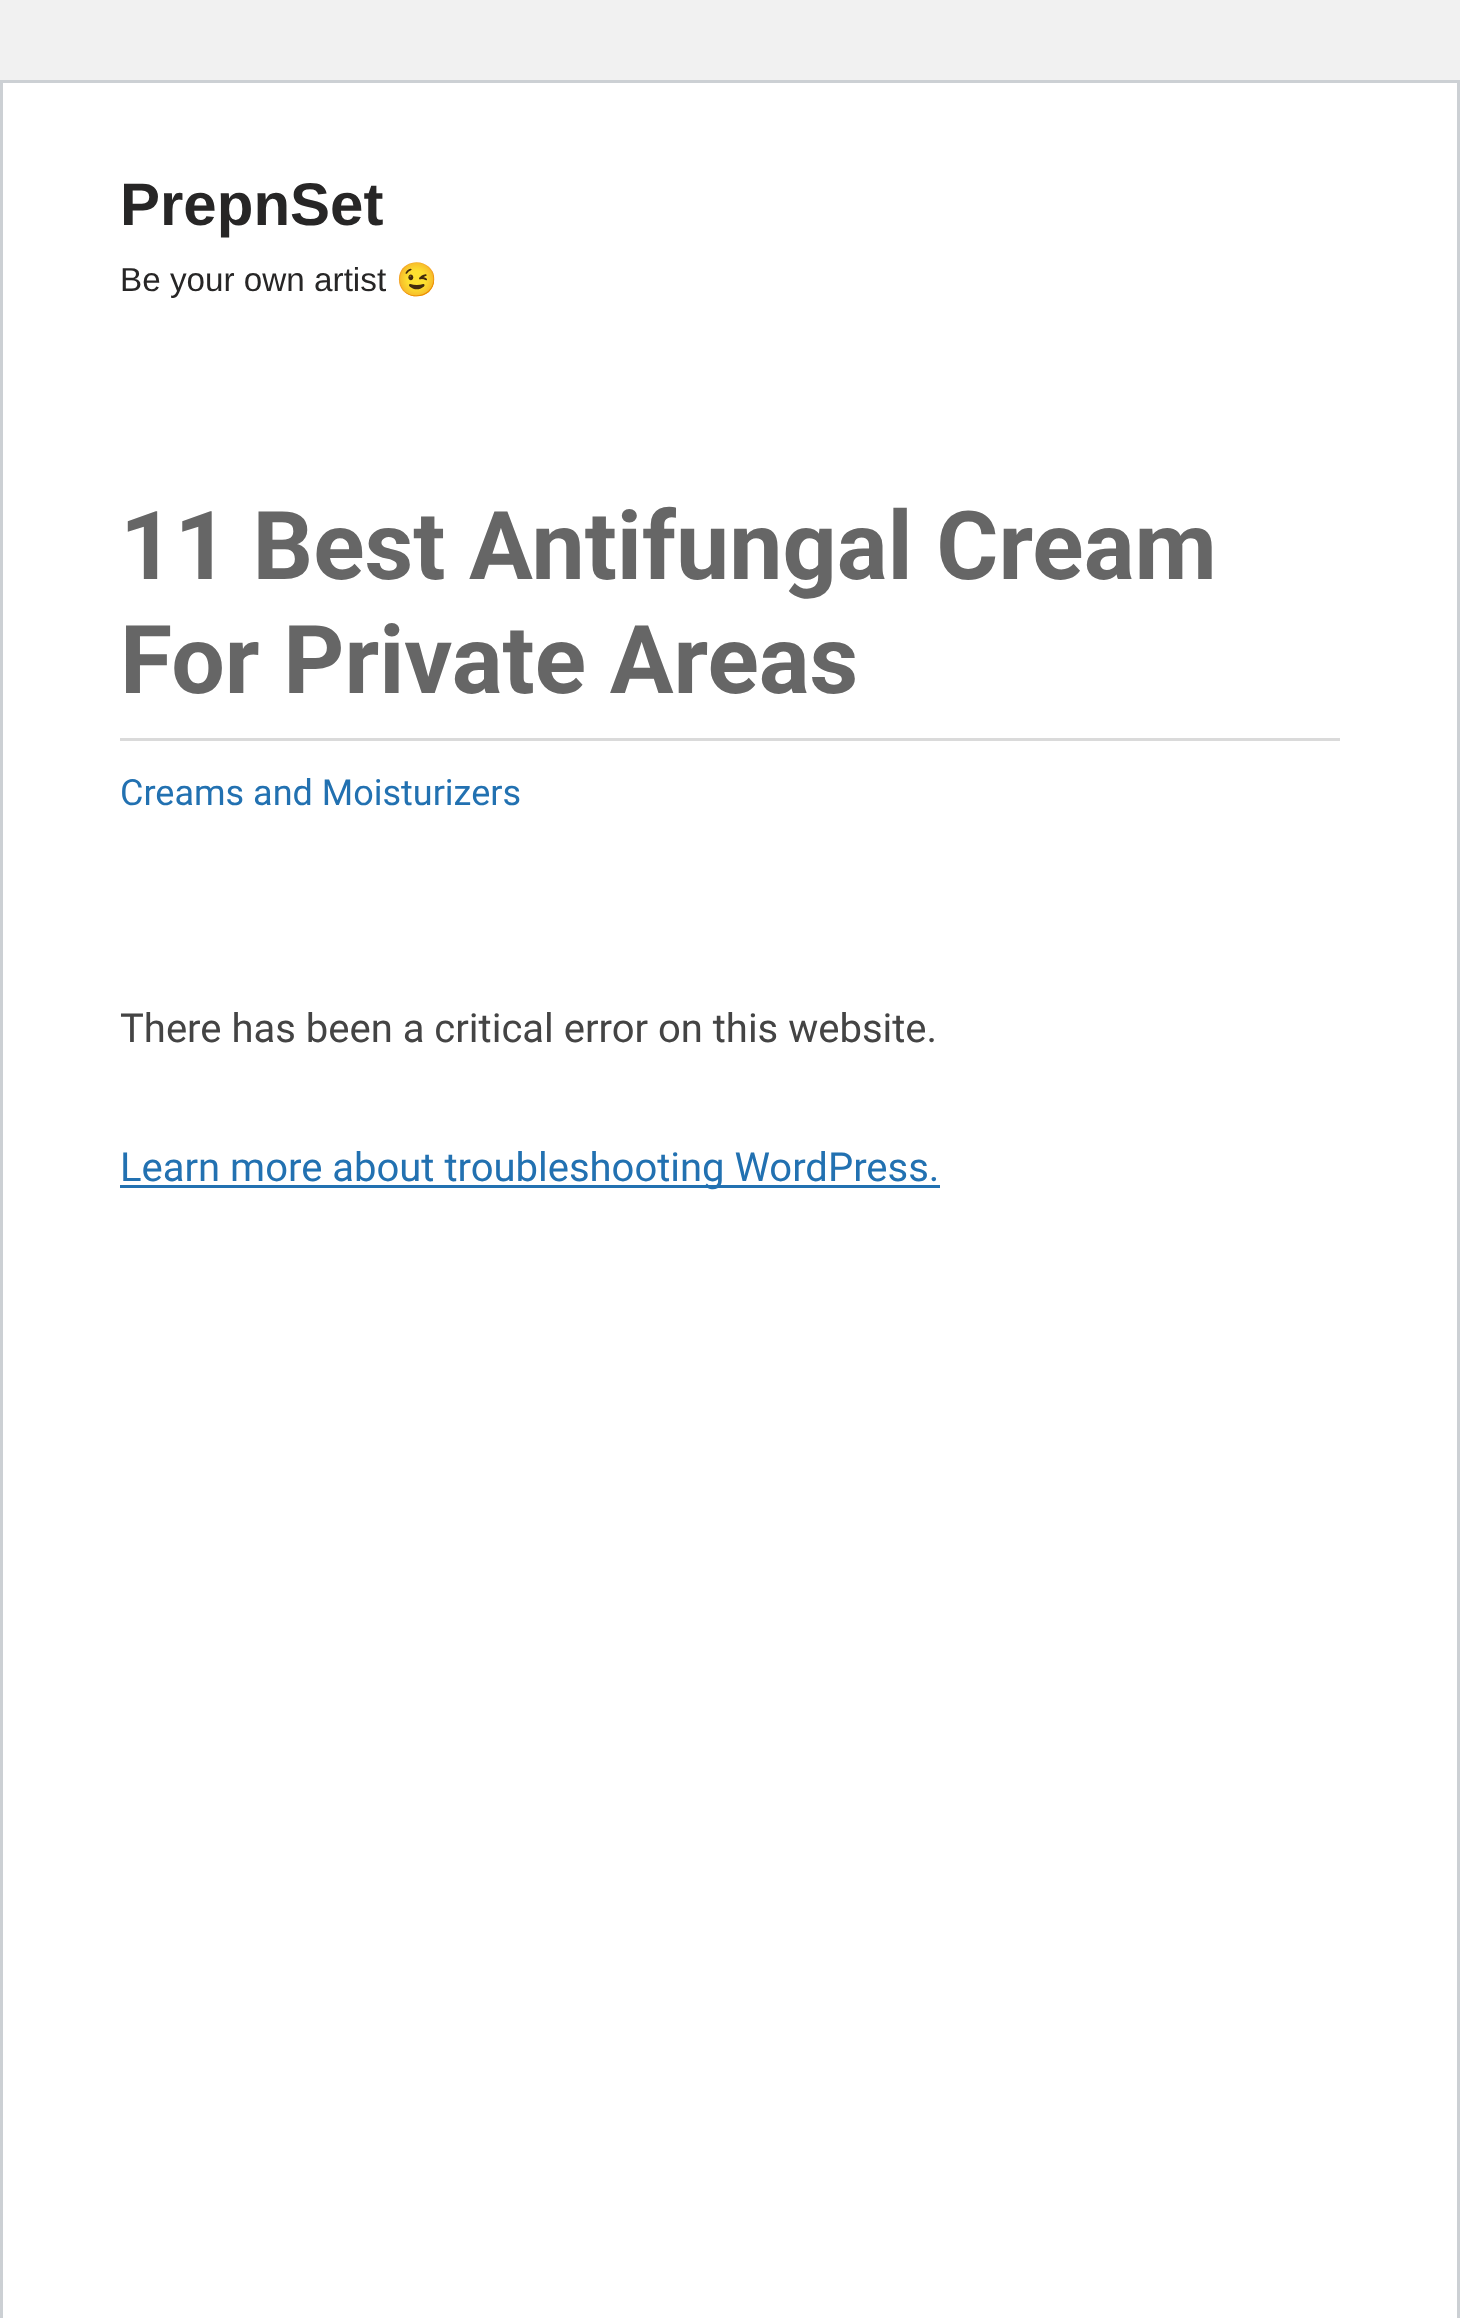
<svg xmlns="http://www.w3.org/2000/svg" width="1460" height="2318">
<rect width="100%" height="100%" fill="#f1f1f1"/>
<rect x="1.5" y="81.5" width="1457" height="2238" fill="#fff" stroke="#ccd0d4" stroke-width="3"/>
<text x="120" y="225" style="font-family:Liberation Sans;font-size:60px;font-weight:bold;fill:#272626">PrepnSet</text>
<text x="120" y="291" style="font-family:Liberation Sans;font-size:33.25px;fill:#272626">Be your own artist</text>
<text x="396" y="291" style="font-family:Noto Color Emoji;font-size:33.25px;fill:#272626">😉</text>
<rect x="120" y="738" width="1220" height="3" fill="#dadada"/>
<text x="120" y="579" style="font-family:Roboto;font-size:95px;font-weight:bold;fill:#666">11 Best Antifungal Cream</text>
<text x="120" y="693" style="font-family:Roboto;font-size:95px;font-weight:bold;fill:#666">For Private Areas</text>
<text x="120" y="805" style="font-family:Roboto;font-size:36px;fill:#2271b1">Creams and Moisturizers</text>
<text x="120" y="1042" style="font-family:Roboto;font-size:40px;fill:#444">There has been a critical error on this website.</text>
<rect x="120" y="1185" width="820" height="3" fill="#2271b1"/>
<text x="120" y="1181" style="font-family:Roboto;font-size:40px;fill:#2271b1">Learn more about troubleshooting WordPress.</text>
</svg>
